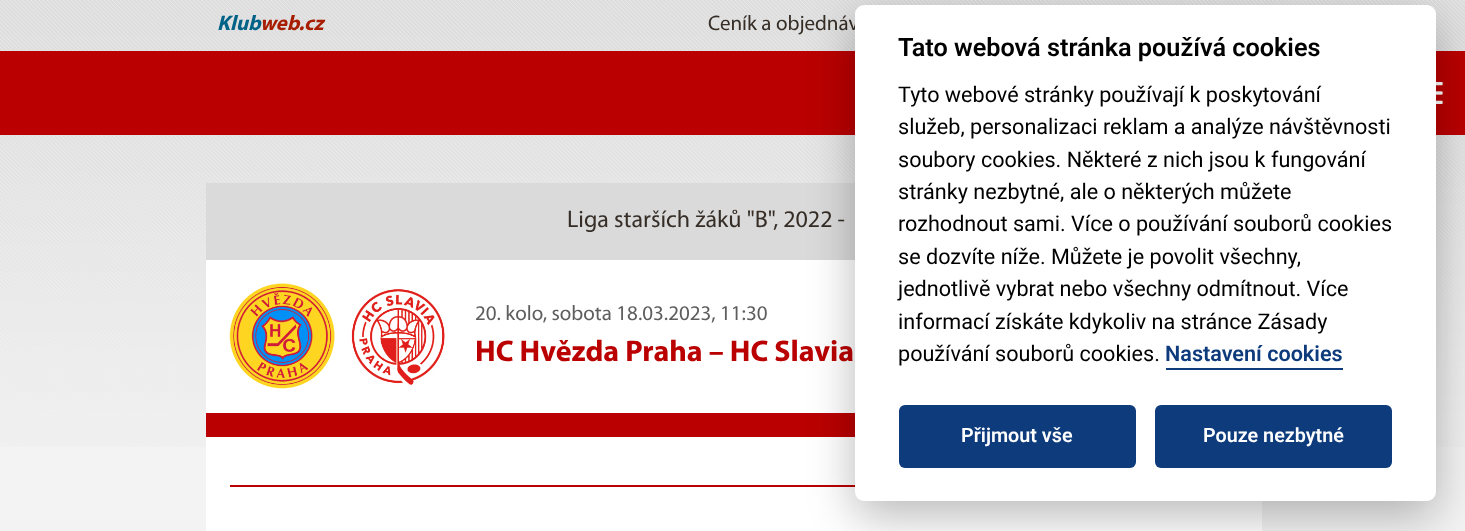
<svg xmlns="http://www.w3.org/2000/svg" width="1465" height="531">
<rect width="100%" height="100%" fill="#f3f3f3"/>
<image x="0" y="0" width="1465" height="447" href="media/1.png"/>
<text x="217" y="30" style="font-family:Myriad;font-size:21px;font-weight:bold;font-style:italic;fill:#006287">Klub</text>
<text x="260" y="30" style="font-family:Myriad;font-size:21px;font-weight:bold;font-style:italic;fill:#a61d00">web.cz</text>
<text x="708" y="30" style="font-family:Myriad;font-size:21px;fill:#352d26">Ceník a objednáv</text>
<rect y="51" width="1465" height="84" fill="#ba0000"/>
<image x="1436" y="82" width="7" height="22" href="media/2.png"/>
<rect x="206" y="183" width="649" height="77" fill="#dadada"/>
<text x="567" y="227" style="font-family:Myriad;font-size:24px;fill:#352d26">Liga starších žáků "B", 2022 -</text>
<rect x="206" y="260" width="1056" height="271" fill="#fff"/>
<rect x="206" y="413" width="649" height="24" fill="#ba0000"/>
<image x="229" y="283" width="106" height="106" href="media/3.png"/>
<image x="351" y="289" width="94" height="96" href="media/4.png"/>
<text x="475" y="320" style="font-family:Myriad;font-size:21px;fill:#5e5e5e">20. kolo, sobota 18.03.2023, 11:30</text>
<text x="475" y="361" style="font-family:Myriad;font-size:30px;font-weight:bold;fill:#ba0000">HC Hvězda Praha – HC Slavia</text>
<rect x="230" y="485" width="625" height="2" fill="#ba0000"/>
<rect x="855" y="20" width="581" height="496" rx="9" fill="#02020347" filter="blur(22.5px)"/>
<rect x="855" y="5" width="581" height="496" rx="9" fill="#fff"/>
<text x="898" y="56" style="font-family:Roboto;font-size:25.25px;font-weight:600;fill:#000">Tato webová stránka používá cookies</text>
<text x="898" y="102" style="font-family:Roboto;font-size:21.6px;fill:#000">Tyto webové stránky používají k poskytování</text>
<text x="898" y="134" style="font-family:Roboto;font-size:21.6px;fill:#000">služeb, personalizaci reklam a analýze návštěvnosti</text>
<text x="898" y="167" style="font-family:Roboto;font-size:21.6px;fill:#000">soubory cookies. Některé z nich jsou k fungování</text>
<text x="898" y="199" style="font-family:Roboto;font-size:21.6px;fill:#000">stránky nezbytné, ale o některých můžete</text>
<text x="898" y="231" style="font-family:Roboto;font-size:21.6px;fill:#000">rozhodnout sami. Více o používání souborů cookies</text>
<text x="898" y="264" style="font-family:Roboto;font-size:21.6px;fill:#000">se dozvíte níže. Můžete je povolit všechny,</text>
<text x="898" y="296" style="font-family:Roboto;font-size:21.6px;fill:#000">jednotlivě vybrat nebo všechny odmítnout. Více</text>
<text x="898" y="329" style="font-family:Roboto;font-size:21.6px;fill:#000">informací získáte kdykoliv na stránce Zásady</text>
<text x="898" y="361" style="font-family:Roboto;font-size:21.6px;fill:#000">používání souborů cookies.</text>
<text x="1165" y="361" style="font-family:Roboto;font-size:21.6px;font-weight:600;fill:#0e3b7c">Nastavení cookies</text>
<rect x="1166" y="368" width="177" height="2" fill="#0e3b7c"/>
<rect x="899" y="405" width="237" height="63" rx="6" fill="#0e3b7c"/>
<text x="961" y="442" style="font-family:Roboto;font-size:19.75px;font-weight:600;fill:#fff">Přijmout vše</text>
<rect x="1155" y="405" width="237" height="63" rx="6" fill="#0e3b7c"/>
<text x="1203" y="442" style="font-family:Roboto;font-size:19.75px;font-weight:600;fill:#fff">Pouze nezbytné</text>
</svg>
